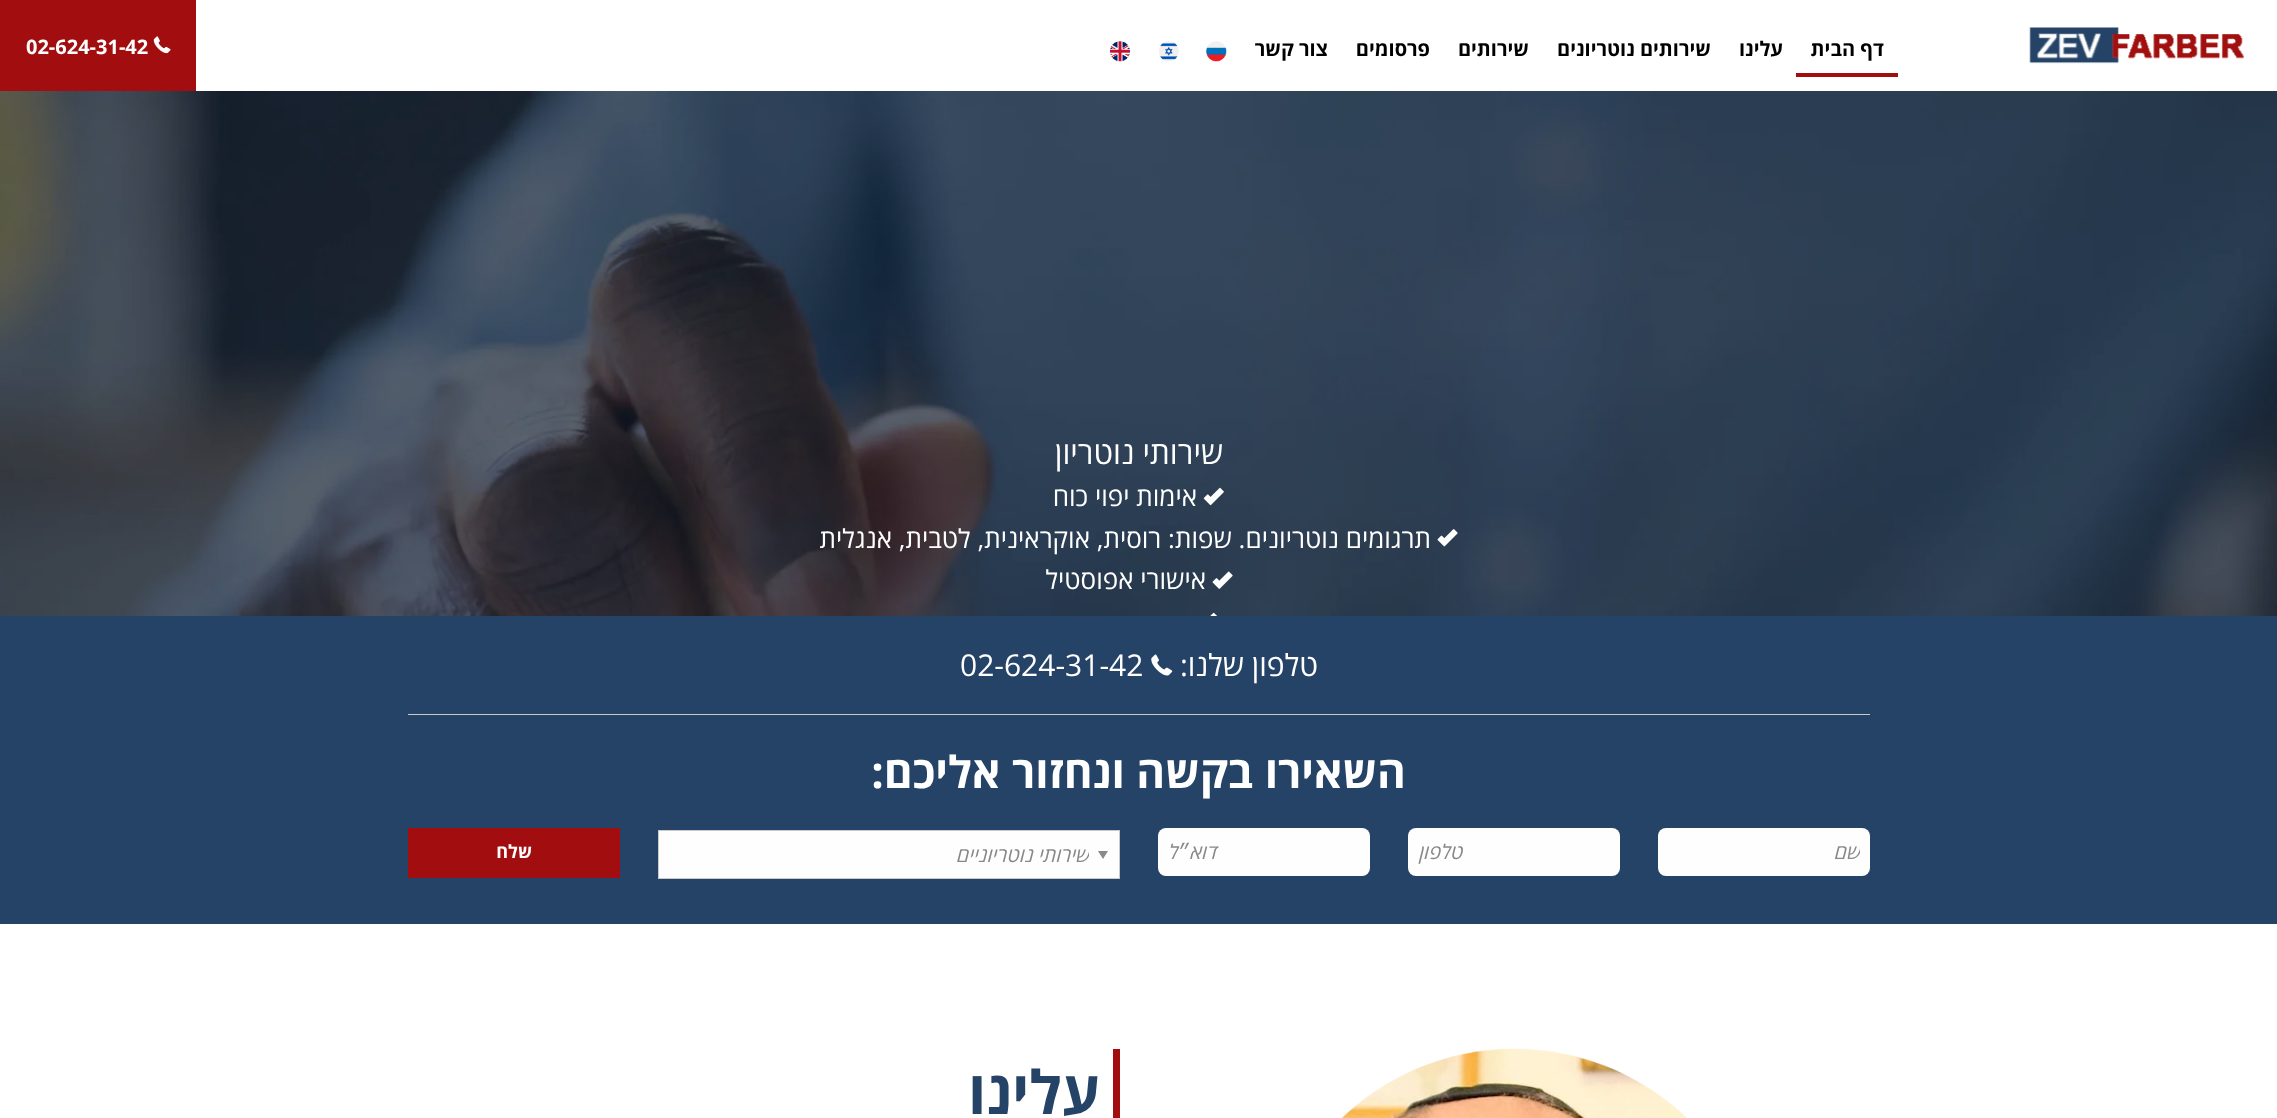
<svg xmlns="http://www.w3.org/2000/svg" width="2277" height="1118">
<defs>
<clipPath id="clip1"><rect x="1668" y="838" width="192" height="27"/></clipPath>
<clipPath id="clip2"><rect x="669" y="840" width="420" height="30"/></clipPath>
</defs>
<rect width="100%" height="100%" fill="#fff"/>
<image x="2029" y="27" width="215" height="37" href="media/1.png"/>
<rect x="1796" y="73" width="102" height="4" fill="#a20e0f"/>
<text x="1884" y="56" style="font-family:Open Sans;font-size:20px;font-weight:bold;direction:rtl;fill:#000">דף הבית</text>
<text x="1783" y="56" style="font-family:Open Sans;font-size:20px;font-weight:bold;direction:rtl;fill:#000">עלינו</text>
<text x="1711" y="56" style="font-family:Open Sans;font-size:20px;font-weight:bold;direction:rtl;fill:#000">שירותים נוטריונים</text>
<text x="1529" y="56" style="font-family:Open Sans;font-size:20px;font-weight:bold;direction:rtl;fill:#000">שירותים</text>
<text x="1430" y="56" style="font-family:Open Sans;font-size:20px;font-weight:bold;direction:rtl;fill:#000">פרסומים</text>
<text x="1328" y="56" style="font-family:Open Sans;font-size:20px;font-weight:bold;direction:rtl;fill:#000">צור קשר</text>
<image x="1206" y="41" width="21" height="21" href="media/2.png"/>
<image x="1159" y="41" width="20" height="20" href="media/3.png"/>
<image x="1110" y="41" width="20" height="21" href="media/4.png"/>
<rect width="196" height="91" fill="#a20e0f"/>
<image x="153" y="36" width="18" height="18" href="media/5.png"/>
<text x="26" y="54" style="font-family:Open Sans;font-size:20px;font-weight:bold;fill:#fff">02-624-31-42</text>
<image x="0" y="91" width="2277" height="525" href="media/6.png"/>
<text x="1223" y="464" style="font-family:Open Sans;font-size:31.25px;direction:rtl;fill:#fff">שירותי נוטריון</text>
<image x="1203" y="487" width="21" height="19" href="media/7.png"/>
<text x="1197" y="506" style="font-family:Open Sans;font-size:26px;direction:rtl;fill:#fff">אימות יפוי כוח</text>
<image x="1437" y="529" width="21" height="18" href="media/8.png"/>
<text x="1431" y="548" style="font-family:Open Sans;font-size:26px;direction:rtl;fill:#fff">תרגומים נוטריונים. שפות: רוסית, אוקראינית, לטבית, אנגלית</text>
<image x="1212" y="571" width="21" height="18" href="media/9.png"/>
<text x="1206" y="589" style="font-family:Open Sans;font-size:26px;direction:rtl;fill:#fff">אישורי אפוסטיל</text>
<image x="1210" y="612" width="7" height="4" href="media/10.png"/>
<rect y="616" width="2277" height="308" fill="#254367"/>
<text x="1318" y="676" style="font-family:Open Sans;font-size:30px;direction:rtl;fill:#fff">טלפון שלנו:</text>
<image x="1151" y="654" width="22" height="22" href="media/11.png"/>
<text x="960" y="676" style="font-family:Open Sans;font-size:30px;fill:#fff">02-624-31-42</text>
<rect x="408" y="714" width="1462" height="1" fill="#cacaca"/>
<text x="1406" y="788" style="font-family:Open Sans;font-size:44px;font-weight:bold;direction:rtl;fill:#fff">השאירו בקשה ונחזור אליכם:</text>
<rect x="1658" y="828" width="212" height="48" rx="8" fill="#fefefe"/>
<g clip-path="url(#clip1)">
<text x="1860" y="859" style="font-family:Open Sans;font-size:20px;font-style:italic;direction:rtl;fill:#888">שם</text>
</g>
<rect x="1408" y="828" width="212" height="48" rx="8" fill="#fefefe"/>
<text x="1462" y="859" style="font-family:Open Sans;font-size:20px;font-style:italic;direction:rtl;fill:#888">טלפון</text>
<rect x="1158" y="828" width="212" height="48" rx="8" fill="#fefefe"/>
<text x="1216" y="859" style="font-family:Open Sans;font-size:20px;font-style:italic;direction:rtl;fill:#888">דוא</text>
<text x="1189" y="859" style="font-family:Liberation Sans;font-size:20px;font-style:italic;direction:rtl;fill:#888">״</text>
<text x="1177" y="859" style="font-family:Open Sans;font-size:20px;font-style:italic;direction:rtl;fill:#888">ל</text>
<rect x="659" y="831" width="460" height="47" fill="#fefefe"/>
<path d="M1098 851h10l-5 8z" fill="#8a8a8a"/>
<rect x="658.5" y="830.5" width="461" height="48" fill="none" stroke="#cacaca"/>
<g clip-path="url(#clip2)">
<text x="1089" y="862" style="font-family:Open Sans;font-size:20px;font-style:italic;direction:rtl;fill:#888">שירותי נוטריוניים</text>
</g>
<rect x="408" y="828" width="212" height="50" fill="#a20e0f"/>
<text x="532" y="858" style="font-family:Open Sans;font-size:18px;font-weight:bold;direction:rtl;fill:#fff">שלח</text>
<image x="1341" y="1048" width="346" height="70" href="media/12.png"/>
<rect x="1113" y="1049" width="7" height="69" fill="#a20e0f"/>
<text x="1100" y="1114" style="font-family:Open Sans;font-size:60px;font-weight:bold;direction:rtl;fill:#254367">עלינו</text>
</svg>
